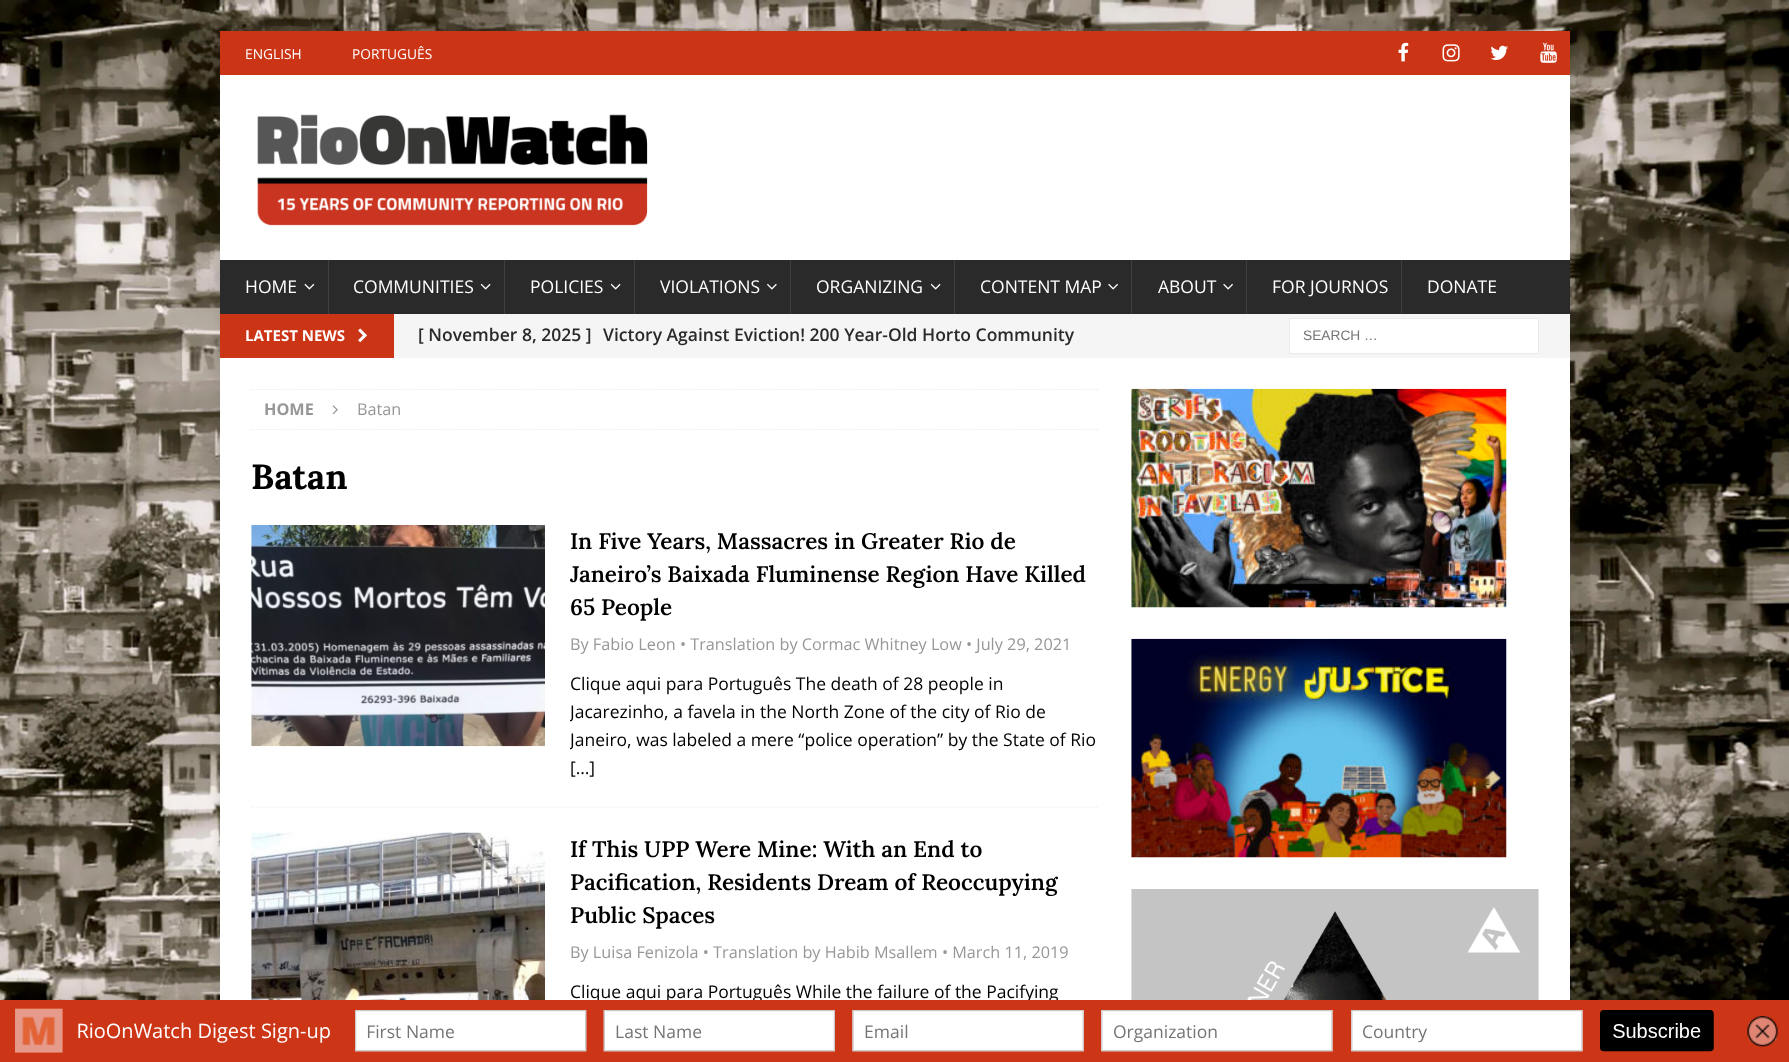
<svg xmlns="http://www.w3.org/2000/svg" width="1789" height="1062">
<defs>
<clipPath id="clip1"><rect x="251" y="389" width="848" height="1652"/></clipPath>
<clipPath id="clip2"><rect x="570" y="670" width="529" height="111"/></clipPath>
</defs>
<rect width="100%" height="100%" fill="#fff"/>
<image x="0" y="0" width="1789" height="1000" href="media/1.png"/>
<rect x="220" y="31" width="1350" height="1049" fill="#3232322b" filter="blur(6px)"/>
<rect x="220" y="31" width="1350" height="44" fill="#cc3416"/>
<text x="245" y="59" style="font-family:Open Sans;font-size:13.75px;fill:#fff">ENGLISH</text>
<text x="352" y="59" style="font-family:Open Sans;font-size:13.75px;fill:#fff">PORTUGUÊS</text>
<image x="1398" y="42" width="11" height="20" href="media/2.png"/>
<image x="1442" y="44" width="18" height="18" href="media/3.png"/>
<image x="1490" y="45" width="18" height="15" href="media/4.png"/>
<image x="1540" y="42" width="17" height="21" href="media/5.png"/>
<rect x="220" y="75" width="1350" height="185" fill="#fff"/>
<image x="257" y="114" width="391" height="112" href="media/6.png"/>
<rect x="220" y="260" width="1350" height="54" fill="#2a2a2a"/>
<text x="245" y="293" style="font-family:Open Sans;font-size:17.5px;fill:#fff">HOME</text>
<image x="304" y="283" width="11" height="7" href="media/7.png"/>
<rect x="328" y="260" width="1" height="54" fill="#3f3f3f"/>
<text x="353" y="293" style="font-family:Open Sans;font-size:17.5px;fill:#fff">COMMUNITIES</text>
<image x="480" y="283" width="11" height="7" href="media/8.png"/>
<rect x="504" y="260" width="1" height="54" fill="#3f3f3f"/>
<text x="530" y="293" style="font-family:Open Sans;font-size:17.5px;fill:#fff">POLICIES</text>
<image x="610" y="283" width="11" height="7" href="media/8.png"/>
<rect x="634" y="260" width="1" height="54" fill="#3f3f3f"/>
<text x="660" y="293" style="font-family:Open Sans;font-size:17.5px;fill:#fff">VIOLATIONS</text>
<image x="767" y="283" width="10" height="7" href="media/9.png"/>
<rect x="790" y="260" width="1" height="54" fill="#3f3f3f"/>
<text x="816" y="293" style="font-family:Open Sans;font-size:17.5px;fill:#fff">ORGANIZING</text>
<image x="930" y="283" width="11" height="7" href="media/8.png"/>
<rect x="954" y="260" width="1" height="54" fill="#3f3f3f"/>
<text x="980" y="293" style="font-family:Open Sans;font-size:17.5px;fill:#fff">CONTENT MAP</text>
<image x="1108" y="283" width="10" height="7" href="media/10.png"/>
<rect x="1131" y="260" width="1" height="54" fill="#3f3f3f"/>
<text x="1158" y="293" style="font-family:Open Sans;font-size:17.5px;fill:#fff">ABOUT</text>
<image x="1223" y="283" width="10" height="7" href="media/10.png"/>
<rect x="1246" y="260" width="1" height="54" fill="#3f3f3f"/>
<text x="1272" y="293" style="font-family:Open Sans;font-size:17.5px;fill:#fff">FOR JOURNOS</text>
<rect x="1401" y="260" width="1" height="54" fill="#3f3f3f"/>
<text x="1427" y="293" style="font-family:Open Sans;font-size:17.5px;fill:#fff">DONATE</text>
<rect x="394" y="314" width="1176" height="44" fill="#f5f5f5"/>
<rect x="220" y="314" width="174" height="44" fill="#cc3416"/>
<text x="245" y="341" style="font-family:Open Sans;font-size:15px;font-weight:bold;fill:#fff">LATEST NEWS</text>
<image x="358" y="328" width="9" height="15" href="media/11.png"/>
<text x="418" y="341" style="font-family:Open Sans;font-size:17.5px;font-weight:600;fill:#2a2a2a">[ November 8, 2025 ]</text>
<text x="603" y="341" style="font-family:Open Sans;font-size:17.5px;font-weight:600;fill:#2a2a2a">Victory Against Eviction! 200 Year-Old Horto Community</text>
<rect x="1289.5" y="318.5" width="249" height="35" fill="#fff" stroke="#ebebeb"/>
<text x="1303" y="340" style="font-family:Liberation Sans;font-size:13.75px;fill:#757575">SEARCH …</text>
<rect x="220" y="358" width="1350" height="642" fill="#fff"/>
<g clip-path="url(#clip1)">
<path d="M251 389.5h848" fill="none" stroke="#ebebeb" stroke-width="1.2" stroke-dasharray="1.25 1.25"/>
</g>
<path d="M251 429.5h848" fill="none" stroke="#ebebeb" stroke-width="1.2" stroke-dasharray="1.25 1.25"/>
<text x="264" y="415" style="font-family:Open Sans;font-size:16.25px;font-weight:bold;fill:#979797">HOME</text>
<image x="332" y="405" width="6" height="10" href="media/12.png"/>
<text x="357" y="415" style="font-family:Open Sans;font-size:16.25px;fill:#979797">Batan</text>
<text x="251" y="489" style="font-family:Lora;font-size:35px;font-weight:bold;fill:#000">Batan</text>
<path d="M251 807h848" fill="none" stroke="#ebebeb" stroke-width="1.2" stroke-dasharray="1.25 1.25"/>
<image x="251" y="525" width="294" height="222" href="media/13.png"/>
<text x="570" y="549" style="font-family:Lora;font-size:22.5px;font-weight:600;fill:#000">In Five Years, Massacres in Greater Rio de</text>
<text x="570" y="582" style="font-family:Lora;font-size:22.5px;font-weight:600;fill:#000">Janeiro’s Baixada Fluminense Region Have Killed</text>
<text x="570" y="615" style="font-family:Lora;font-size:22.5px;font-weight:600;fill:#000">65 People</text>
<text x="570" y="650" style="font-family:Open Sans;font-size:16.25px;fill:#979797">By Fabio Leon • Translation by Cormac Whitney Low • July 29, 2021</text>
<text x="570" y="690" style="font-family:Open Sans;font-size:17.5px;fill:#000">Clique aqui para Português The death of 28 people in</text>
<g clip-path="url(#clip2)">
<text x="570" y="718" style="font-family:Open Sans;font-size:17.5px;fill:#000">Jacarezinho, a favela in the North Zone of the city of Rio de</text>
<text x="570" y="746" style="font-family:Open Sans;font-size:17.5px;fill:#000">Janeiro, was labeled a mere “police operation” by the State of Rio</text>
</g>
<text x="570" y="774" style="font-family:Open Sans;font-size:17.5px;fill:#000">[…]</text>
<image x="251" y="832" width="294" height="168" href="media/14.png"/>
<text x="570" y="857" style="font-family:Lora;font-size:22.5px;font-weight:600;fill:#000">If This UPP Were Mine: With an End to</text>
<text x="570" y="890" style="font-family:Lora;font-size:22.5px;font-weight:600;fill:#000">Pacification, Residents Dream of Reoccupying</text>
<text x="570" y="923" style="font-family:Lora;font-size:22.5px;font-weight:600;fill:#000">Public Spaces</text>
<text x="570" y="958" style="font-family:Open Sans;font-size:16.25px;fill:#979797">By Luisa Fenizola • Translation by Habib Msallem • March 11, 2019</text>
<text x="570" y="998" style="font-family:Open Sans;font-size:17.5px;fill:#000">Clique aqui para Português While the failure of the Pacifying</text>
<image x="1131" y="388" width="376" height="220" href="media/15.png"/>
<image x="1131" y="638" width="376" height="220" href="media/16.png"/>
<image x="1131" y="889" width="408" height="111" href="media/17.png"/>
<image x="0" y="1000" width="1789" height="62" href="media/18.png"/>
</svg>
